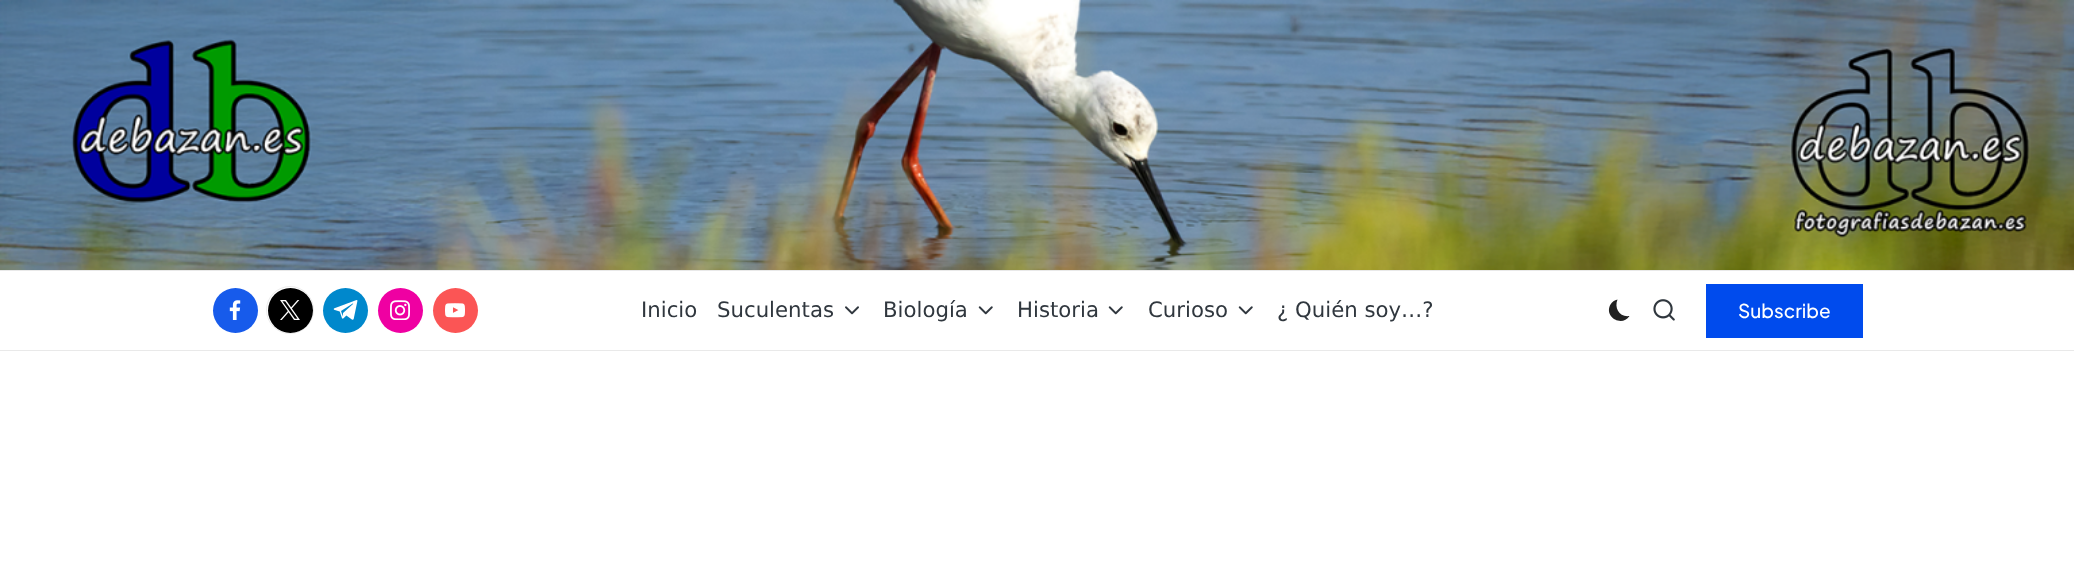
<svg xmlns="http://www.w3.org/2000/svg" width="2074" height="570">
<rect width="100%" height="100%" fill="#fff"/>
<image x="0" y="0" width="2074" height="270" href="media/1.png"/>
<rect y="270" width="2074" height="1" fill="#e9e9e9"/>
<rect y="350" width="2074" height="1" fill="#e9e9e9"/>
<circle cx="235.5" cy="310.5" r="22.5" fill="#175beb"/>
<image x="229" y="300" width="12" height="20" href="media/2.png"/>
<circle cx="290.5" cy="310.5" r="22.5" fill="#000"/>
<circle cx="290" cy="310" r="23.5" fill="none" stroke="#bebebe4d"/>
<image x="280" y="300" width="20" height="20" href="media/3.png"/>
<circle cx="345.5" cy="310.5" r="22.5" fill="#08c"/>
<image x="333" y="300" width="25" height="20" href="media/4.png"/>
<circle cx="400.5" cy="310.5" r="22.5" fill="#ef00a2"/>
<image x="390" y="300" width="20" height="20" href="media/5.png"/>
<circle cx="455.5" cy="310.5" r="22.5" fill="#fb5555"/>
<image x="445" y="303" width="20" height="15" href="media/6.png"/>
<text x="641" y="317" style="font-family:DejaVu Sans;font-size:21.25px;fill:#30373e">Inicio</text>
<text x="717" y="317" style="font-family:DejaVu Sans;font-size:21.25px;fill:#30373e">Suculentas</text>
<image x="845" y="306" width="14" height="9" href="media/7.png"/>
<text x="883" y="317" style="font-family:DejaVu Sans;font-size:21.25px;fill:#30373e">Biología</text>
<image x="978" y="306" width="15" height="9" href="media/8.png"/>
<text x="1017" y="317" style="font-family:DejaVu Sans;font-size:21.25px;fill:#30373e">Historia</text>
<image x="1108" y="306" width="15" height="9" href="media/8.png"/>
<text x="1148" y="317" style="font-family:DejaVu Sans;font-size:21.25px;fill:#30373e">Curioso</text>
<image x="1238" y="306" width="15" height="9" href="media/8.png"/>
<text x="1277" y="317" style="font-family:DejaVu Sans;font-size:21.25px;fill:#30373e">¿ Quién soy…?</text>
<path d="M1629.5 316c-10 1.5-15.5-8-12-16.5c-3 .5-5.5 2.5-7 5c-7 12.5 11.5 23 19 11.5z" fill="#212121"/>
<image x="1653" y="299" width="22" height="22" href="media/9.png"/>
<rect x="1706" y="284" width="157" height="54" fill="#004bed"/>
<text x="1738" y="318" style="font-family:Plus Jakarta Sans;font-size:19px;font-weight:500;fill:#fff">Subscribe</text>
</svg>
